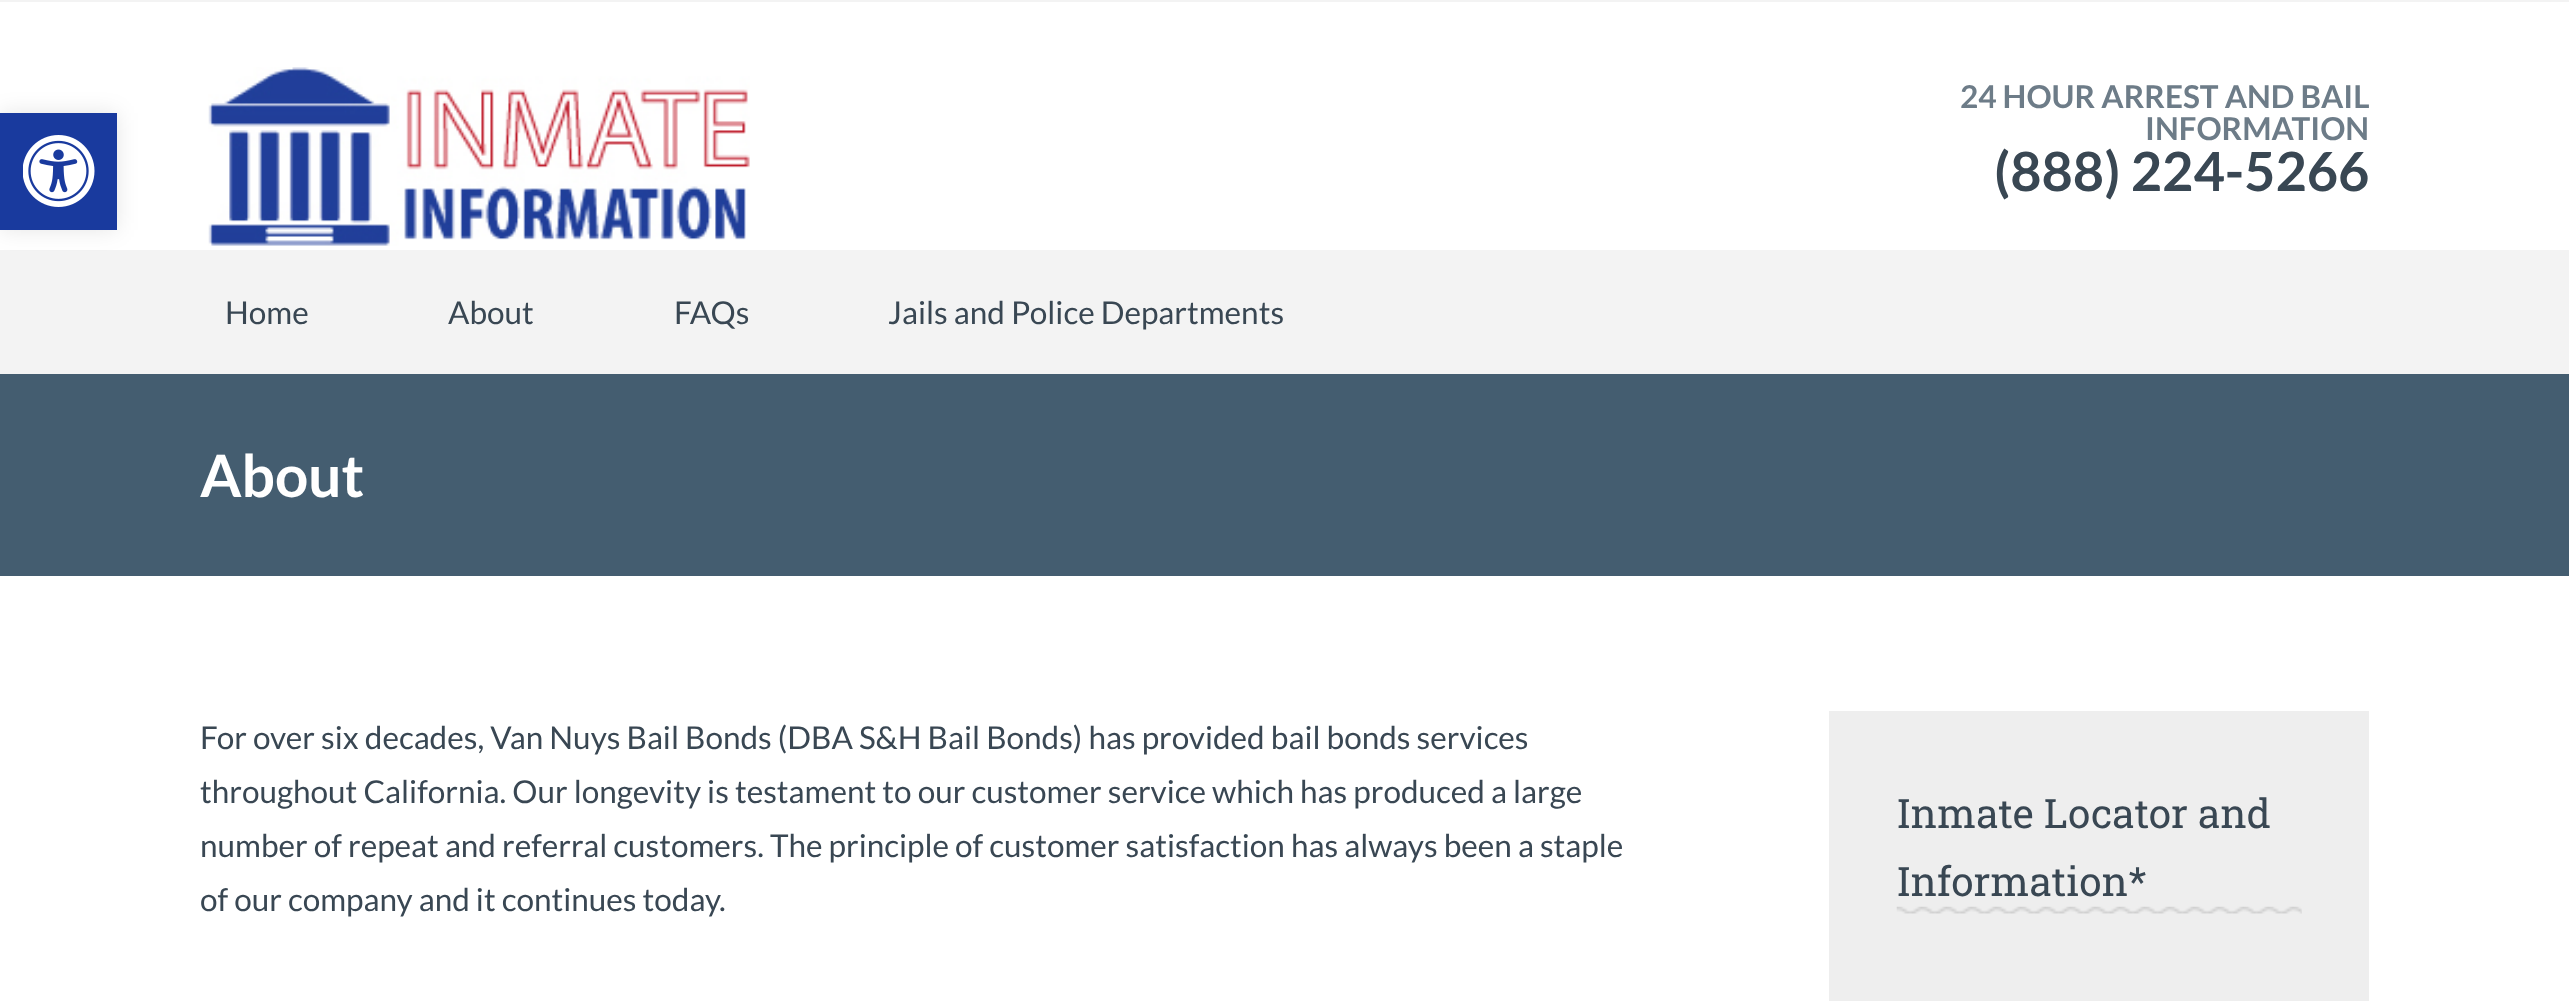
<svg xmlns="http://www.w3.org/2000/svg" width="2569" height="1001">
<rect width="100%" height="100%" fill="#f3f3f3"/>
<rect y="2" width="2569" height="248" fill="#fff"/>
<rect y="113" width="117" height="117" fill="#0000001a" filter="blur(11px)"/>
<rect y="113" width="117" height="117" fill="#193a9e"/>
<image x="23" y="135" width="72" height="72" href="media/1.png"/>
<image x="208" y="67" width="542" height="179" href="media/2.png"/>
<text x="1960" y="108" style="font-family:Lato;font-size:31.5px;font-weight:bold;fill:#6d7c88">24 HOUR ARREST AND BAIL</text>
<text x="2145" y="140" style="font-family:Lato;font-size:31.5px;font-weight:bold;fill:#6d7c88">INFORMATION</text>
<text x="1994" y="191" style="font-family:Lato;font-size:54px;font-weight:bold;fill:#394753">(888) 224-5266</text>
<text x="225" y="324" style="font-family:Lato;font-size:31.5px;fill:#394753">Home</text>
<text x="448" y="324" style="font-family:Lato;font-size:31.5px;fill:#394753">About</text>
<text x="674" y="324" style="font-family:Lato;font-size:31.5px;fill:#394753">FAQs</text>
<text x="888" y="324" style="font-family:Lato;font-size:31.5px;fill:#394753">Jails and Police Departments</text>
<rect y="374" width="2569" height="202" fill="#445d70"/>
<text x="200" y="497" style="font-family:Lato;font-size:58.5px;font-weight:bold;fill:#fff">About</text>
<rect y="576" width="2569" height="425" fill="#fff"/>
<text x="200" y="749" style="font-family:Lato;font-size:31.5px;fill:#394753">For over six decades, Van Nuys Bail Bonds (DBA S&amp;H Bail Bonds) has provided bail bonds services</text>
<text x="200" y="803" style="font-family:Lato;font-size:31.5px;fill:#394753">throughout California. Our longevity is testament to our customer service which has produced a large</text>
<text x="200" y="857" style="font-family:Lato;font-size:31.5px;fill:#394753">number of repeat and referral customers. The principle of customer satisfaction has always been a staple</text>
<text x="200" y="911" style="font-family:Lato;font-size:31.5px;fill:#394753">of our company and it continues today.</text>
<rect x="1829" y="711" width="540" height="290" fill="#eee"/>
<image x="1896" y="906" width="406" height="8" href="media/3.png"/>
<text x="1897" y="828" style="font-family:Roboto Slab;font-size:40.5px;fill:#394753">Inmate Locator and</text>
<text x="1897" y="896" style="font-family:Roboto Slab;font-size:40.5px;fill:#394753">Information*</text>
</svg>
